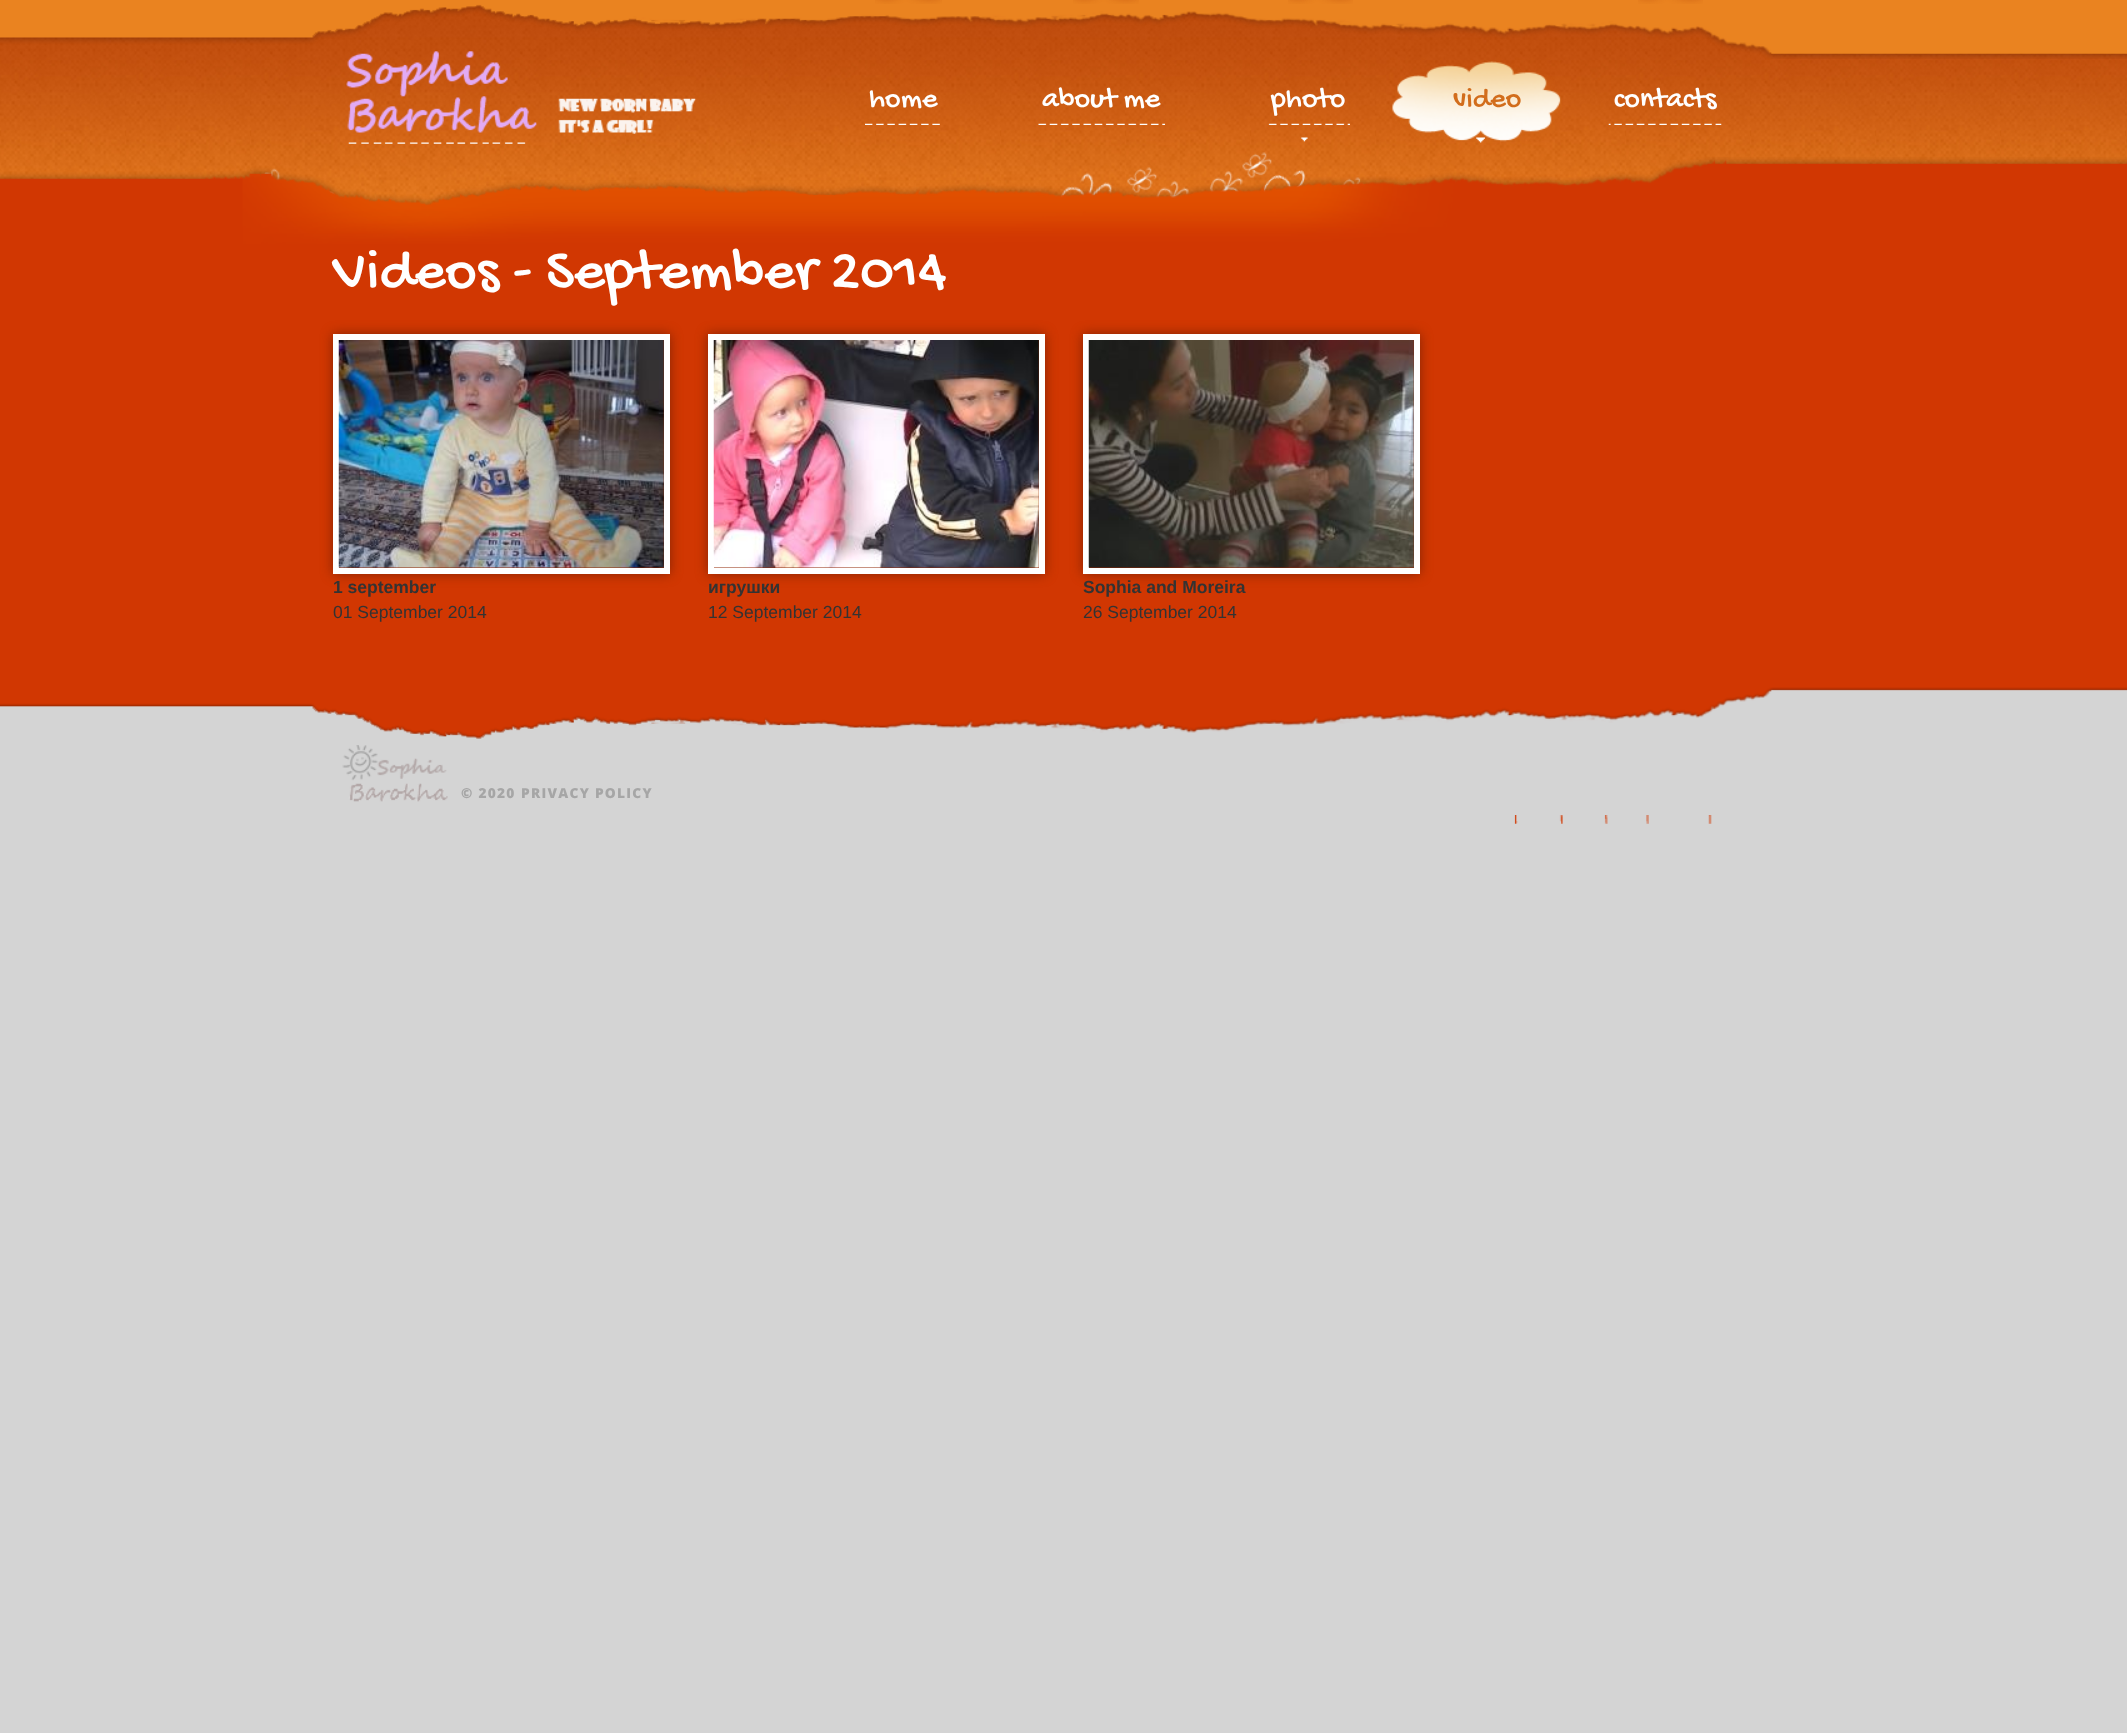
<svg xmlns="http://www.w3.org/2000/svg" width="2127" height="1733">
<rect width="100%" height="100%" fill="#d4d4d4"/>
<image x="0" y="4" width="2127" height="202" href="media/1.png"/>
<image x="0" y="0" width="2127" height="59" href="media/2.png"/>
<image x="346" y="51" width="351" height="93" href="media/3.png"/>
<image x="875" y="0" width="67" height="4" href="media/4.png"/>
<image x="865" y="123" width="75" height="2" href="media/5.png"/>
<text x="869" y="106" style="font-family:Gochi Hand;font-size:30px;fill:#fff">home</text>
<image x="1073" y="0" width="66" height="4" href="media/6.png"/>
<image x="1038" y="123" width="127" height="2" href="media/7.png"/>
<text x="1042" y="106" style="font-family:Gochi Hand;font-size:30px;fill:#fff">about me</text>
<image x="1288" y="0" width="65" height="4" href="media/8.png"/>
<image x="1268" y="123" width="82" height="2" href="media/9.png"/>
<text x="1271" y="106" style="font-family:Gochi Hand;font-size:30px;fill:#fff">photo</text>
<image x="1301" y="137" width="7" height="5" href="media/10.png"/>
<image x="1392" y="61" width="170" height="81" href="media/11.png"/>
<text x="1453" y="106" style="font-family:Gochi Hand;font-size:30px;fill:#d26d1c">video</text>
<image x="1476" y="137" width="9" height="6" href="media/12.png"/>
<image x="1638" y="0" width="65" height="4" href="media/8.png"/>
<image x="1608" y="123" width="114" height="2" href="media/13.png"/>
<text x="1614" y="106" style="font-family:Gochi Hand;font-size:30px;fill:#fff">contacts</text>
<image x="264" y="152" width="1448" height="672" href="media/14.png"/>
<image x="0" y="157" width="2127" height="87" href="media/15.png"/>
<rect y="244" width="2127" height="495" fill="#d13702"/>
<text x="333" y="286" style="font-family:Gochi Hand;font-size:60px;fill:#fff">Videos - September 2014</text>
<rect x="333" y="334" width="337" height="240" fill="#842202" filter="blur(6px)"/>
<rect x="336" y="337" width="331" height="234" fill="none" stroke="#fff" stroke-width="6"/>
<image x="338" y="340" width="326" height="228" href="media/16.png"/>
<text x="333" y="593" style="font-family:Liberation Sans;font-size:17.5px;font-weight:bold;fill:#333">1 september</text>
<text x="333" y="618" style="font-family:Liberation Sans;font-size:17.5px;fill:#333">01 September 2014</text>
<rect x="708" y="334" width="337" height="240" fill="#842202" filter="blur(6px)"/>
<rect x="711" y="337" width="331" height="234" fill="none" stroke="#fff" stroke-width="6"/>
<image x="713" y="340" width="326" height="228" href="media/17.png"/>
<text x="708" y="593" style="font-family:Liberation Sans;font-size:17.5px;font-weight:bold;fill:#333">игрушки</text>
<text x="708" y="618" style="font-family:Liberation Sans;font-size:17.5px;fill:#333">12 September 2014</text>
<rect x="1083" y="334" width="337" height="240" fill="#842202" filter="blur(6px)"/>
<rect x="1086" y="337" width="331" height="234" fill="none" stroke="#fff" stroke-width="6"/>
<image x="1088" y="340" width="326" height="228" href="media/18.png"/>
<text x="1083" y="593" style="font-family:Liberation Sans;font-size:17.5px;font-weight:bold;fill:#333">Sophia and Moreira</text>
<text x="1083" y="618" style="font-family:Liberation Sans;font-size:17.5px;fill:#333">26 September 2014</text>
<image x="0" y="687" width="2127" height="58" href="media/19.png"/>
<rect x="264" y="745" width="1448" height="70" fill="#d4d4d4"/>
<image x="342" y="745" width="106" height="57" href="media/20.png"/>
<text x="461" y="798" style="font-family:Open Sans;font-size:13.75px;font-weight:800;letter-spacing:1.25px;fill:#a6a6a6">© 2020</text>
<text x="521" y="798" style="font-family:Open Sans;font-size:13.75px;font-weight:800;letter-spacing:1.25px;fill:#a6a6a6">PRIVACY POLICY</text>
</svg>
